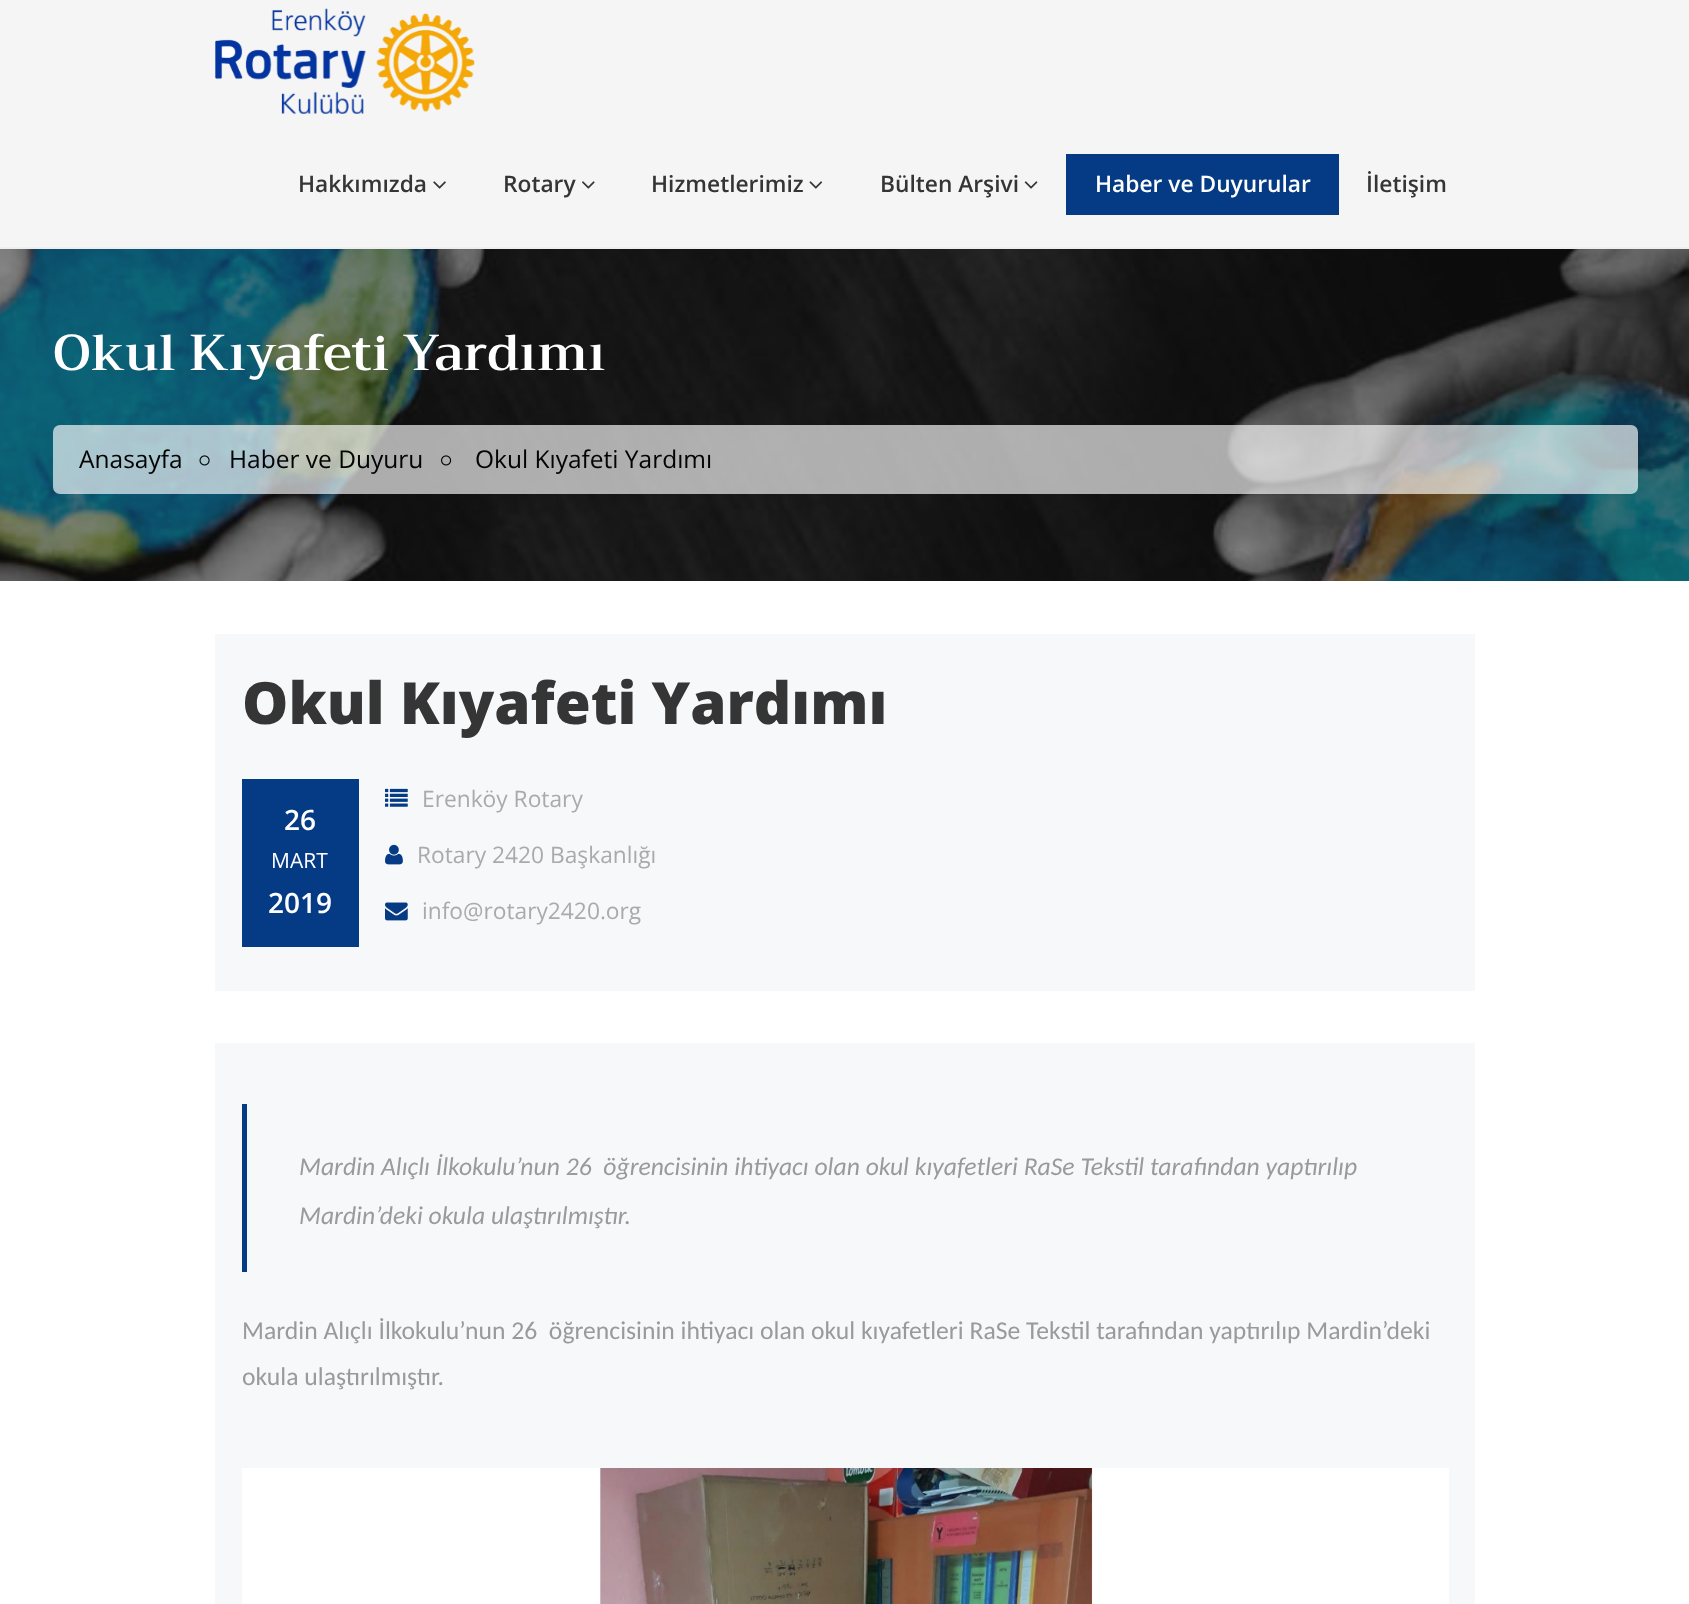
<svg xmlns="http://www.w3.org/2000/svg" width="1689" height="1604">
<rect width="100%" height="100%" fill="#fff"/>
<rect width="1689" height="247" fill="#f5f5f5"/>
<rect y="247" width="1689" height="2" fill="#eee"/>
<image x="215" y="8" width="260" height="106" href="media/1.png"/>
<text x="298" y="192" style="font-family:Open Sans;font-size:22.75px;font-weight:600;fill:#353535">Hakkımızda</text>
<image x="433" y="181" width="13" height="8" href="media/2.png"/>
<text x="503" y="192" style="font-family:Open Sans;font-size:22.75px;font-weight:600;fill:#353535">Rotary</text>
<image x="582" y="181" width="13" height="8" href="media/3.png"/>
<text x="651" y="192" style="font-family:Open Sans;font-size:22.75px;font-weight:600;fill:#353535">Hizmetlerimiz</text>
<image x="809" y="181" width="14" height="8" href="media/4.png"/>
<text x="880" y="192" style="font-family:Open Sans;font-size:22.75px;font-weight:600;fill:#353535">Bülten Arşivi</text>
<image x="1024" y="181" width="14" height="8" href="media/5.png"/>
<rect x="1066" y="154" width="273" height="61" fill="#043b84"/>
<text x="1095" y="192" style="font-family:Open Sans;font-size:22.75px;font-weight:600;fill:#fff">Haber ve Duyurular</text>
<text x="1366" y="192" style="font-family:Open Sans;font-size:22.75px;font-weight:600;fill:#353535">İletişim</text>
<image x="0" y="249" width="1689" height="332" href="media/6.png"/>
<text x="53" y="370" style="font-family:Trirong;font-size:50.4px;font-weight:600;fill:#fff">Okul Kıyafeti Yardımı</text>
<rect x="53" y="425" width="1585" height="69" rx="7" fill="#ffffffa8"/>
<text x="79" y="468" style="font-family:Open Sans;font-size:24.5px;fill:#030303">Anasayfa</text>
<image x="199" y="455" width="11" height="11" href="media/7.png"/>
<text x="229" y="468" style="font-family:Open Sans;font-size:24.5px;fill:#030303">Haber ve Duyuru</text>
<image x="441" y="455" width="11" height="11" href="media/8.png"/>
<text x="475" y="468" style="font-family:Open Sans;font-size:24.5px;fill:#030303">Okul Kıyafeti Yardımı</text>
<rect x="215" y="634" width="1260" height="357" fill="#f7f8fa"/>
<text x="242" y="724" style="font-family:Open Sans;font-size:58.25px;font-weight:800;fill:#353535">Okul Kıyafeti Yardımı</text>
<rect x="242" y="779" width="117" height="168" fill="#043b84"/>
<text x="284" y="830" style="font-family:Open Sans;font-size:28px;font-weight:600;fill:#fff">26</text>
<text x="271" y="868" style="font-family:Open Sans;font-size:21px;fill:#fff">MART</text>
<text x="268" y="913" style="font-family:Open Sans;font-size:28px;font-weight:600;fill:#fff">2019</text>
<image x="385" y="788" width="23" height="19" href="media/9.png"/>
<text x="422" y="807" style="font-family:Open Sans;font-size:22.75px;fill:#aaa">Erenköy Rotary</text>
<image x="385" y="844" width="18" height="21" href="media/10.png"/>
<text x="417" y="863" style="font-family:Open Sans;font-size:22.75px;fill:#aaa">Rotary 2420 Başkanlığı</text>
<image x="385" y="902" width="23" height="19" href="media/11.png"/>
<text x="422" y="919" style="font-family:Open Sans;font-size:22.75px;fill:#aaa">info@rotary2420.org</text>
<rect x="215" y="1043" width="1260" height="561" fill="#f7f8fa"/>
<rect x="242" y="1104" width="5" height="168" fill="#043b84"/>
<text x="299" y="1175" style="font-family:Carlito;font-size:25.65px;font-style:italic;fill:#9a9a9a" xml:space="preserve">Mardin Alıçlı İlkokulu’nun 26  öğrencisinin ihtiyacı olan okul kıyafetleri RaSe Tekstil tarafından yaptırılıp</text>
<text x="299" y="1224" style="font-family:Carlito;font-size:25.65px;font-style:italic;fill:#9a9a9a">Mardin’deki okula ulaştırılmıştır.</text>
<text x="242" y="1339" style="font-family:Carlito;font-size:25.65px;fill:#9a9a9a" xml:space="preserve">Mardin Alıçlı İlkokulu’nun 26  öğrencisinin ihtiyacı olan okul kıyafetleri RaSe Tekstil tarafından yaptırılıp Mardin’deki</text>
<text x="242" y="1385" style="font-family:Carlito;font-size:25.65px;fill:#9a9a9a">okula ulaştırılmıştır.</text>
<rect x="242" y="1468" width="1207" height="136" fill="#fff"/>
<image x="600" y="1468" width="493" height="136" href="media/12.png"/>
</svg>
